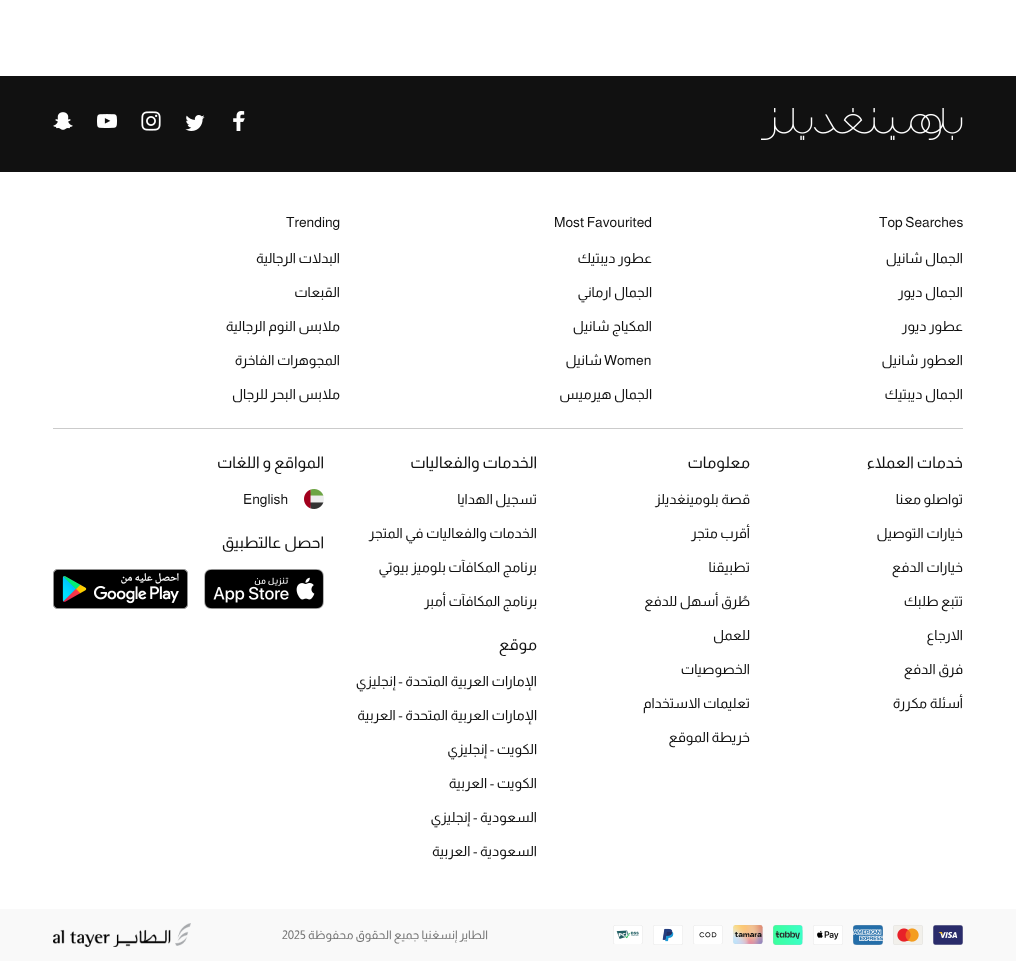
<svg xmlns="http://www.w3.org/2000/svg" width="1016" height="961">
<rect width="100%" height="100%" fill="#fff"/>
<rect y="76" width="1016" height="96" fill="#111"/>
<image x="761" y="108" width="202" height="32" href="media/1.png"/>
<image x="233" y="111" width="12" height="20" href="media/2.png"/>
<image x="185" y="115" width="20" height="16" href="media/3.png"/>
<image x="141" y="111" width="20" height="20" href="media/4.png"/>
<image x="97" y="114" width="20" height="14" href="media/5.png"/>
<image x="53" y="112" width="20" height="18" href="media/6.png"/>
<rect x="53" y="428" width="910" height="1" fill="#cbcbcb"/>
<text x="879" y="227" style="font-family:Almarai;font-size:14px;fill:#111">Top Searches</text>
<text x="963" y="263" style="font-family:Almarai;font-size:14px;direction:rtl;fill:#111">الجمال شانيل</text>
<text x="963" y="297" style="font-family:Almarai;font-size:14px;direction:rtl;fill:#111">الجمال ديور</text>
<text x="963" y="331" style="font-family:Almarai;font-size:14px;direction:rtl;fill:#111">عطور ديور</text>
<text x="963" y="365" style="font-family:Almarai;font-size:14px;direction:rtl;fill:#111">العطور شانيل</text>
<text x="963" y="399" style="font-family:Almarai;font-size:14px;direction:rtl;fill:#111">الجمال ديبتيك</text>
<text x="554" y="227" style="font-family:Almarai;font-size:14px;fill:#111">Most Favourited</text>
<text x="652" y="263" style="font-family:Almarai;font-size:14px;direction:rtl;fill:#111">عطور ديبتيك</text>
<text x="652" y="297" style="font-family:Almarai;font-size:14px;direction:rtl;fill:#111">الجمال ارماني</text>
<text x="652" y="331" style="font-family:Almarai;font-size:14px;direction:rtl;fill:#111">المكياج شانيل</text>
<text x="604" y="365" style="font-family:Almarai;font-size:14px;fill:#111">Women</text>
<text x="602" y="365" style="font-family:Almarai;font-size:14px;direction:rtl;fill:#111">شانيل</text>
<text x="652" y="399" style="font-family:Almarai;font-size:14px;direction:rtl;fill:#111">الجمال هيرميس</text>
<text x="286" y="227" style="font-family:Almarai;font-size:14px;fill:#111">Trending</text>
<text x="340" y="263" style="font-family:Almarai;font-size:14px;direction:rtl;fill:#111">البدلات الرجالية</text>
<text x="340" y="297" style="font-family:Almarai;font-size:14px;direction:rtl;fill:#111">القبعات</text>
<text x="340" y="331" style="font-family:Almarai;font-size:14px;direction:rtl;fill:#111">ملابس النوم الرجالية</text>
<text x="340" y="365" style="font-family:Almarai;font-size:14px;direction:rtl;fill:#111">المجوهرات الفاخرة</text>
<text x="340" y="399" style="font-family:Almarai;font-size:14px;direction:rtl;fill:#111">ملابس البحر للرجال</text>
<text x="963" y="468" style="font-family:Almarai;font-size:16px;direction:rtl;fill:#111">خدمات العملاء</text>
<text x="963" y="504" style="font-family:Almarai;font-size:14px;direction:rtl;fill:#111">تواصلو معنا</text>
<text x="963" y="538" style="font-family:Almarai;font-size:14px;direction:rtl;fill:#111">خيارات التوصيل</text>
<text x="963" y="572" style="font-family:Almarai;font-size:14px;direction:rtl;fill:#111">خيارات الدفع</text>
<text x="963" y="606" style="font-family:Almarai;font-size:14px;direction:rtl;fill:#111">تتبع طلبك</text>
<text x="963" y="640" style="font-family:Almarai;font-size:14px;direction:rtl;fill:#111">الارجاع</text>
<text x="963" y="674" style="font-family:Almarai;font-size:14px;direction:rtl;fill:#111">فرق الدفع</text>
<text x="963" y="708" style="font-family:Almarai;font-size:14px;direction:rtl;fill:#111">أسئلة مكررة</text>
<text x="750" y="468" style="font-family:Almarai;font-size:16px;direction:rtl;fill:#111">معلومات</text>
<text x="750" y="504" style="font-family:Almarai;font-size:14px;direction:rtl;fill:#111">قصة بلومينغديلز</text>
<text x="750" y="538" style="font-family:Almarai;font-size:14px;direction:rtl;fill:#111">أقرب متجر</text>
<text x="750" y="572" style="font-family:Almarai;font-size:14px;direction:rtl;fill:#111">تطبيقنا</text>
<text x="750" y="606" style="font-family:Almarai;font-size:14px;direction:rtl;fill:#111">طُرق أسهل للدفع</text>
<text x="750" y="640" style="font-family:Almarai;font-size:14px;direction:rtl;fill:#111">للعمل</text>
<text x="750" y="674" style="font-family:Almarai;font-size:14px;direction:rtl;fill:#111">الخصوصيات</text>
<text x="750" y="708" style="font-family:Almarai;font-size:14px;direction:rtl;fill:#111">تعليمات الاستخدام</text>
<text x="750" y="742" style="font-family:Almarai;font-size:14px;direction:rtl;fill:#111">خريطة الموقع</text>
<text x="537" y="468" style="font-family:Almarai;font-size:16px;direction:rtl;fill:#111">الخدمات والفعاليات</text>
<text x="537" y="504" style="font-family:Almarai;font-size:14px;direction:rtl;fill:#111">تسجيل الهدايا</text>
<text x="537" y="538" style="font-family:Almarai;font-size:14px;direction:rtl;fill:#111">الخدمات والفعاليات في المتجر</text>
<text x="537" y="572" style="font-family:Almarai;font-size:14px;direction:rtl;fill:#111">برنامج المكافآت بلوميز بيوتي</text>
<text x="537" y="606" style="font-family:Almarai;font-size:14px;direction:rtl;fill:#111">برنامج المكافآت أمبر</text>
<text x="537" y="650" style="font-family:Almarai;font-size:16px;direction:rtl;fill:#111">موقع</text>
<text x="537" y="686" style="font-family:Almarai;font-size:14px;direction:rtl;fill:#111">الإمارات العربية المتحدة - إنجليزي</text>
<text x="537" y="720" style="font-family:Almarai;font-size:14px;direction:rtl;fill:#111">الإمارات العربية المتحدة - العربية</text>
<text x="537" y="754" style="font-family:Almarai;font-size:14px;direction:rtl;fill:#111">الكويت - إنجليزي</text>
<text x="537" y="788" style="font-family:Almarai;font-size:14px;direction:rtl;fill:#111">الكويت - العربية</text>
<text x="537" y="822" style="font-family:Almarai;font-size:14px;direction:rtl;fill:#111">السعودية - إنجليزي</text>
<text x="537" y="856" style="font-family:Almarai;font-size:14px;direction:rtl;fill:#111">السعودية - العربية</text>
<text x="324" y="468" style="font-family:Almarai;font-size:16px;direction:rtl;fill:#111">المواقع و اللغات</text>
<image x="304" y="489" width="20" height="20" href="media/7.png"/>
<text x="243" y="504" style="font-family:Almarai;font-size:14px;fill:#111">English</text>
<text x="324" y="548" style="font-family:Almarai;font-size:16px;direction:rtl;fill:#111">احصل عالتطبيق</text>
<image x="204" y="569" width="120" height="40" href="media/8.png"/>
<image x="53" y="569" width="135" height="40" href="media/9.png"/>
<rect y="909" width="1016" height="52" fill="#f9f9f9"/>
<image x="933" y="925" width="30" height="20" href="media/10.png"/>
<image x="893" y="925" width="30" height="20" href="media/11.png"/>
<image x="853" y="925" width="30" height="20" href="media/12.png"/>
<image x="813" y="925" width="30" height="20" href="media/13.png"/>
<image x="773" y="925" width="30" height="20" href="media/14.png"/>
<image x="733" y="925" width="30" height="19" href="media/15.png"/>
<image x="693" y="925" width="30" height="19" href="media/16.png"/>
<image x="653" y="925" width="30" height="20" href="media/17.png"/>
<image x="613" y="925" width="30" height="19" href="media/18.png"/>
<text x="488" y="939" style="font-family:Almarai;font-size:12px;direction:rtl;fill:#767676">الطاير إنسغنيا جميع الحقوق محفوظة</text>
<text x="282" y="939" style="font-family:Almarai;font-size:12px;fill:#767676">2025</text>
<image x="53" y="923" width="138" height="24" href="media/19.png"/>
</svg>
